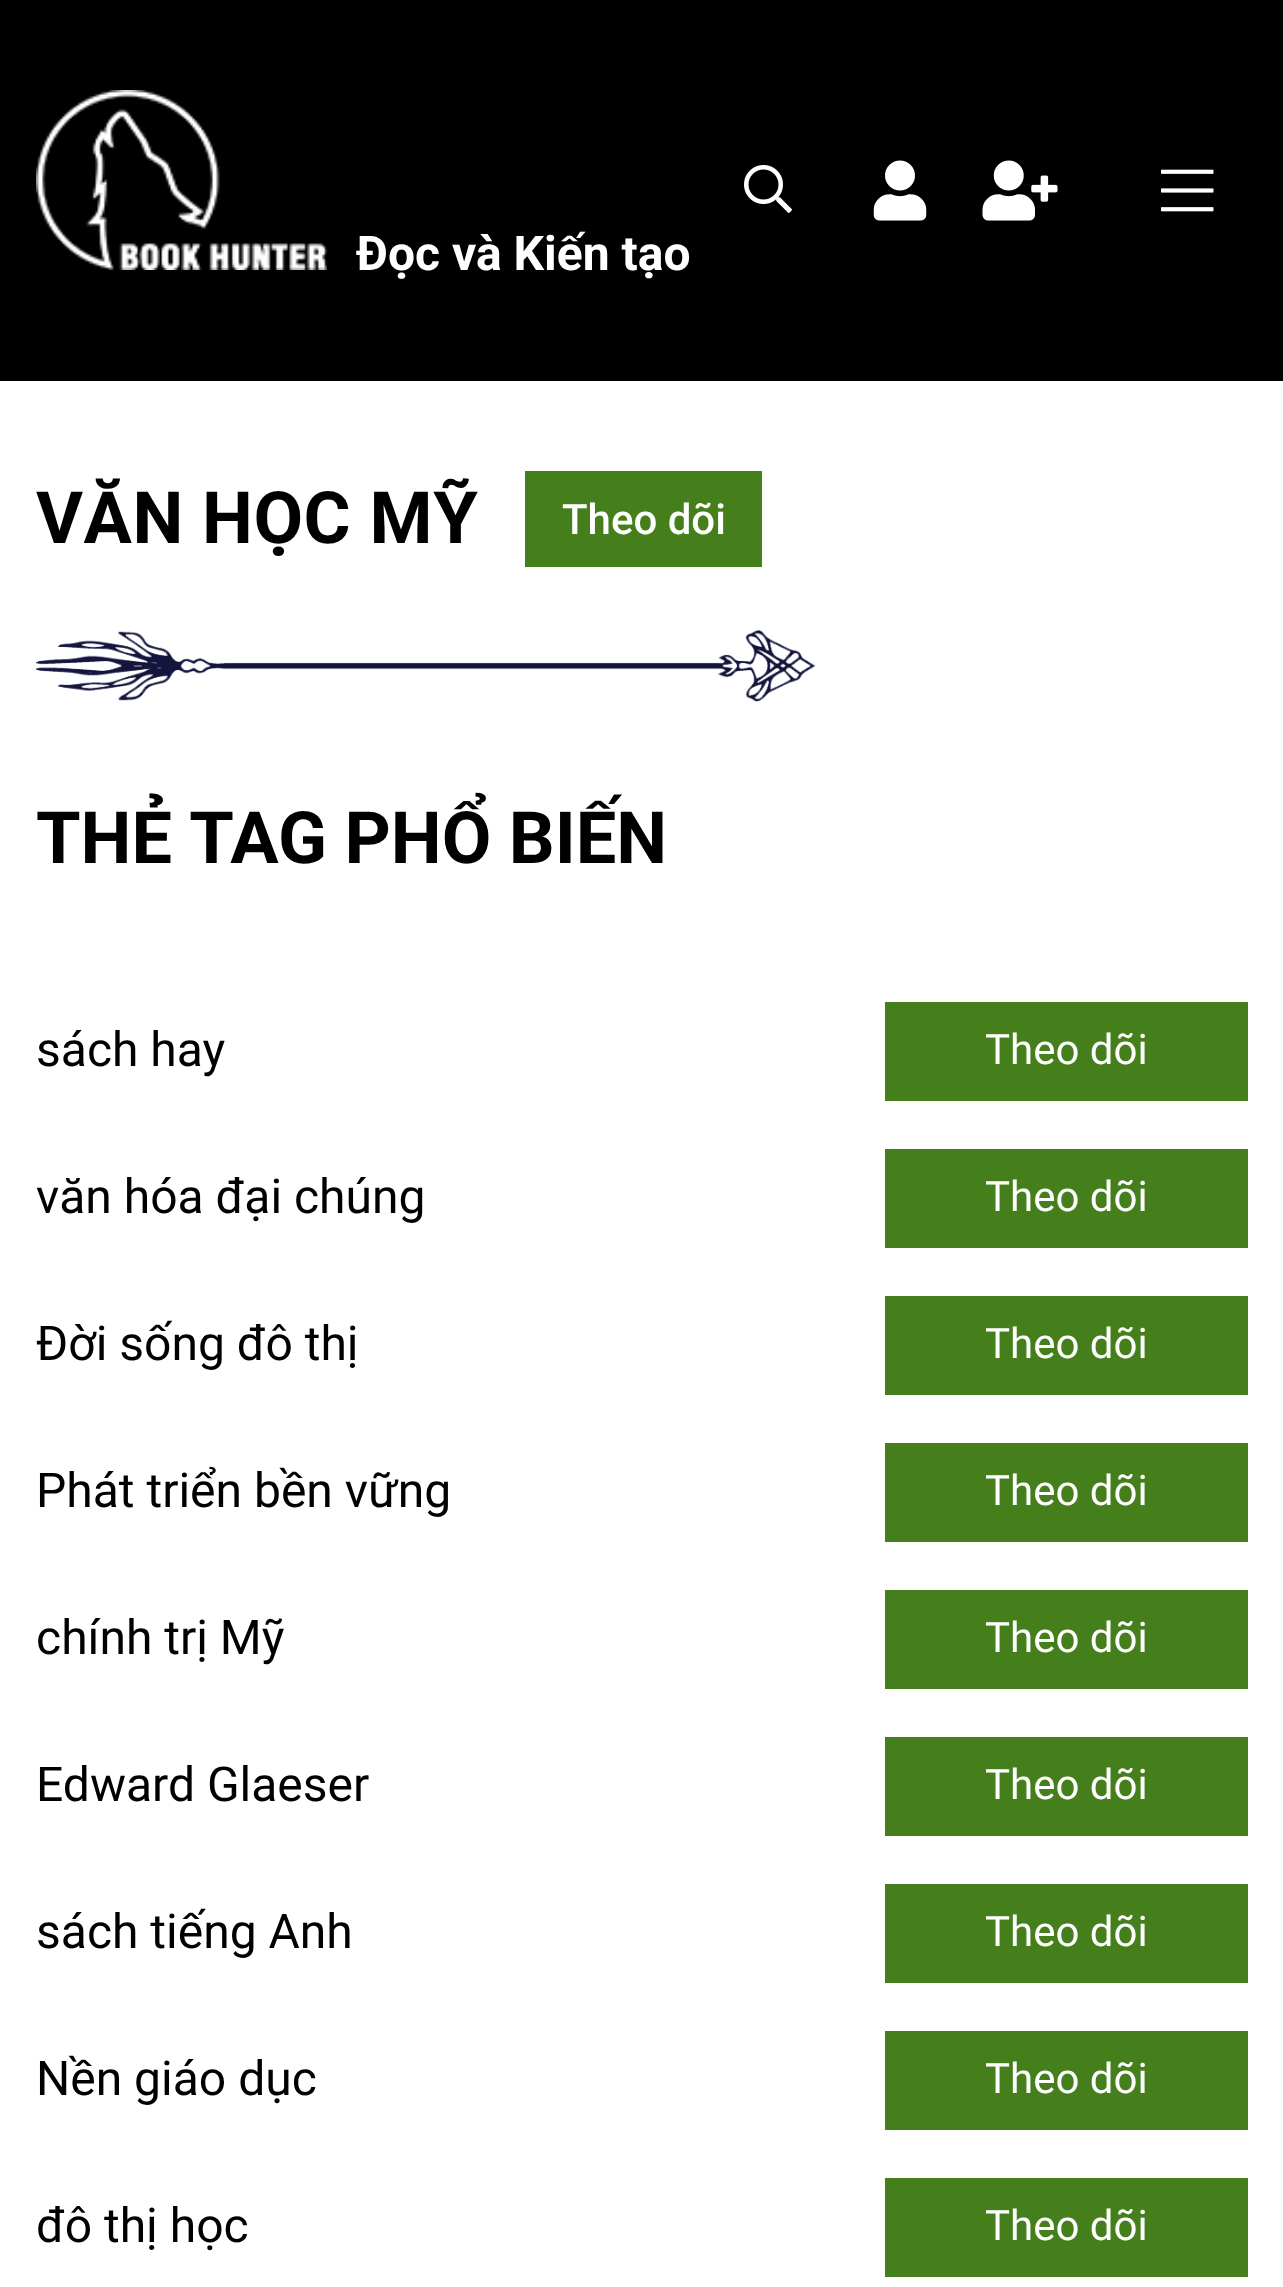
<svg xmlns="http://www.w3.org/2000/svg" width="1283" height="2287">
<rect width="100%" height="100%" fill="#fff"/>
<rect width="1283" height="381" fill="#000"/>
<image x="744" y="165" width="48" height="48" href="media/1.png"/>
<image x="873" y="160" width="54" height="61" href="media/2.png"/>
<image x="982" y="160" width="76" height="61" href="media/3.png"/>
<image x="1161" y="169" width="53" height="43" href="media/4.png"/>
<image x="36" y="90" width="291" height="180" href="media/5.png"/>
<text x="356" y="270" style="font-family:Roboto;font-size:48px;font-weight:bold;fill:#fff">Đọc và Kiến tạo</text>
<text x="36" y="543" style="font-family:Roboto;font-size:72px;font-weight:bold;letter-spacing:0.5px;fill:#000">VĂN HỌC MỸ</text>
<rect x="525" y="471" width="237" height="96" fill="#457f1b"/>
<text x="562" y="534" style="font-family:Roboto;font-size:42px;font-weight:500;fill:#fff">Theo dõi</text>
<image x="36" y="630" width="780" height="72" href="media/6.png"/>
<text x="36" y="863" word-spacing="-0.5" style="font-family:Roboto;font-size:72px;font-weight:bold;fill:#000">THẺ TAG PHỔ BIẾN</text>
<text x="36" y="1066" style="font-family:Roboto;font-size:48px;fill:#000">sách hay</text>
<rect x="885" y="1002" width="363" height="99" fill="#457f1b"/>
<text x="985" y="1064" style="font-family:Roboto;font-size:42px;fill:#fff">Theo dõi</text>
<text x="36" y="1213" style="font-family:Roboto;font-size:48px;fill:#000">văn hóa đại chúng</text>
<rect x="885" y="1149" width="363" height="99" fill="#457f1b"/>
<text x="985" y="1211" style="font-family:Roboto;font-size:42px;fill:#fff">Theo dõi</text>
<text x="36" y="1360" style="font-family:Roboto;font-size:48px;fill:#000">Đời sống đô thị</text>
<rect x="885" y="1296" width="363" height="99" fill="#457f1b"/>
<text x="985" y="1358" style="font-family:Roboto;font-size:42px;fill:#fff">Theo dõi</text>
<text x="36" y="1507" style="font-family:Roboto;font-size:48px;fill:#000">Phát triển bền vững</text>
<rect x="885" y="1443" width="363" height="99" fill="#457f1b"/>
<text x="985" y="1505" style="font-family:Roboto;font-size:42px;fill:#fff">Theo dõi</text>
<text x="36" y="1654" style="font-family:Roboto;font-size:48px;fill:#000">chính trị Mỹ</text>
<rect x="885" y="1590" width="363" height="99" fill="#457f1b"/>
<text x="985" y="1652" style="font-family:Roboto;font-size:42px;fill:#fff">Theo dõi</text>
<text x="36" y="1801" style="font-family:Roboto;font-size:48px;fill:#000">Edward Glaeser</text>
<rect x="885" y="1737" width="363" height="99" fill="#457f1b"/>
<text x="985" y="1799" style="font-family:Roboto;font-size:42px;fill:#fff">Theo dõi</text>
<text x="36" y="1948" style="font-family:Roboto;font-size:48px;fill:#000">sách tiếng Anh</text>
<rect x="885" y="1884" width="363" height="99" fill="#457f1b"/>
<text x="985" y="1946" style="font-family:Roboto;font-size:42px;fill:#fff">Theo dõi</text>
<text x="36" y="2095" style="font-family:Roboto;font-size:48px;fill:#000">Nền giáo dục</text>
<rect x="885" y="2031" width="363" height="99" fill="#457f1b"/>
<text x="985" y="2093" style="font-family:Roboto;font-size:42px;fill:#fff">Theo dõi</text>
<text x="36" y="2242" style="font-family:Roboto;font-size:48px;fill:#000">đô thị học</text>
<rect x="885" y="2178" width="363" height="99" fill="#457f1b"/>
<text x="985" y="2240" style="font-family:Roboto;font-size:42px;fill:#fff">Theo dõi</text>
</svg>
